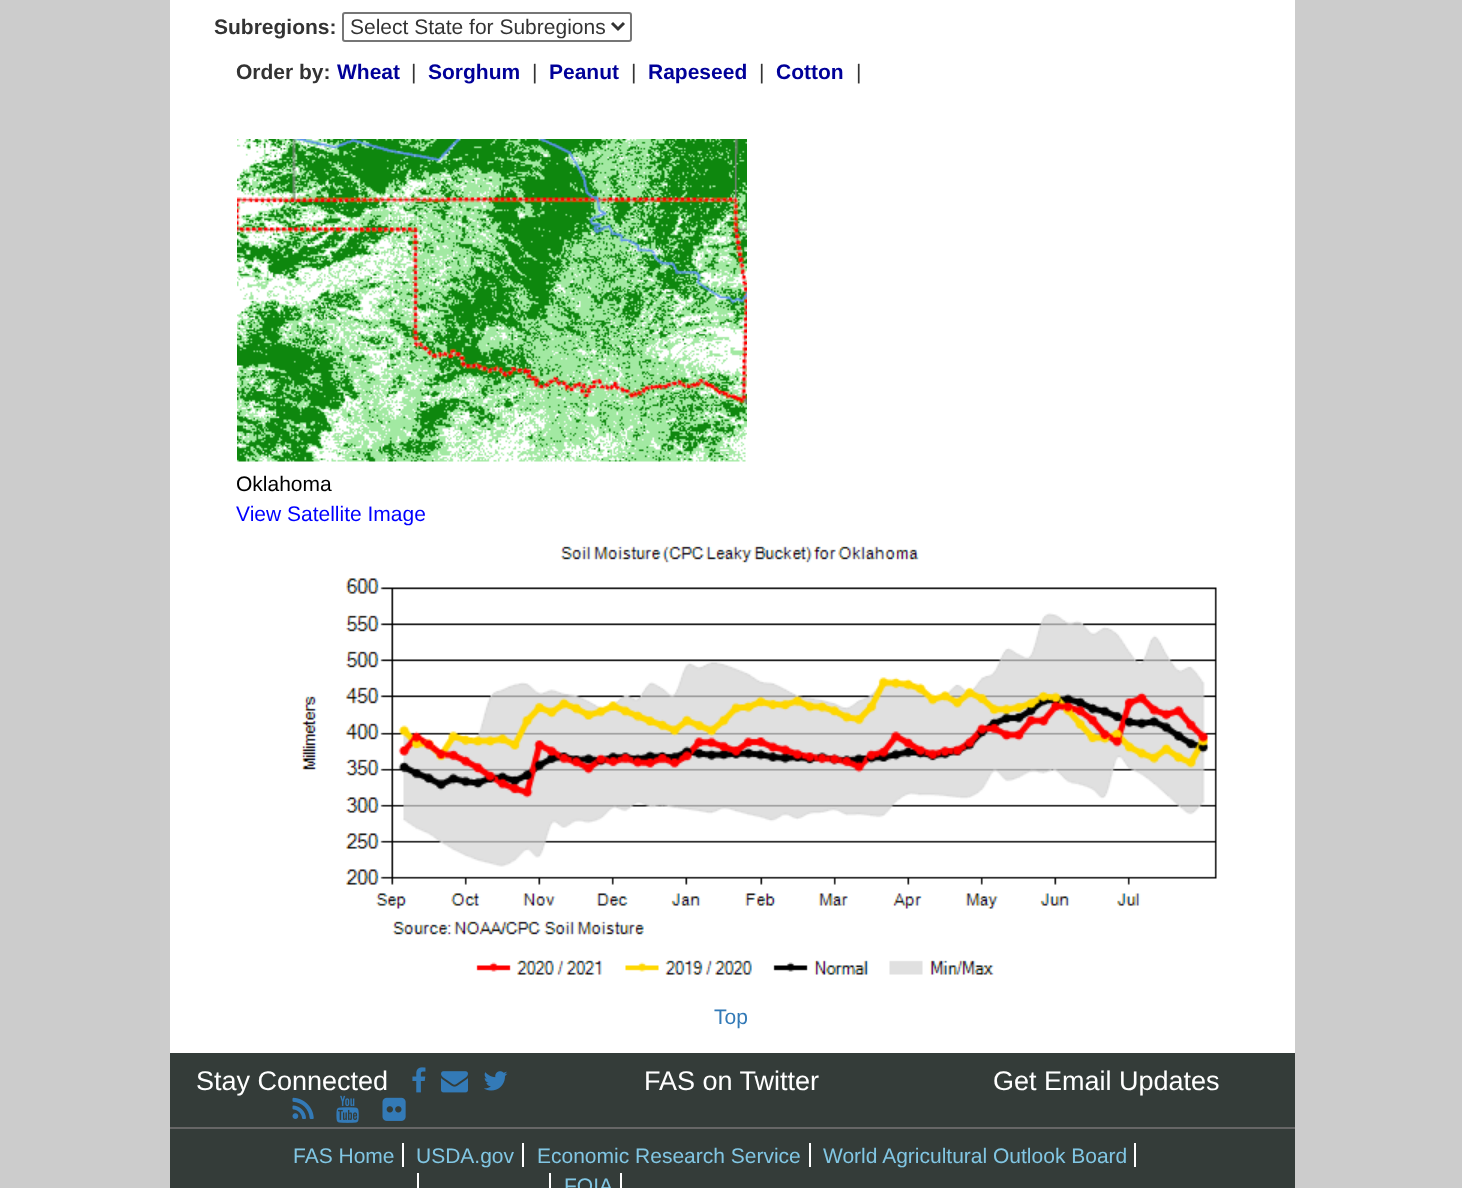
<svg xmlns="http://www.w3.org/2000/svg" width="1462" height="1188">
<rect width="100%" height="100%" fill="#ccc"/>
<rect x="170" width="1125" height="1053" fill="#fff"/>
<text x="214" y="34" style="font-family:Liberation Sans;font-size:21px;font-weight:bold;fill:#333">Subregions:</text>
<rect x="343" y="13" width="288" height="28" rx="2" fill="none" stroke="#767676" stroke-width="2"/>
<path d="M612 23l6 6l6-6" fill="none" stroke="#333" stroke-width="3"/>
<text x="350" y="34" style="font-family:Liberation Sans;font-size:21px;fill:#333">Select State for Subregions</text>
<text x="236" y="79" style="font-family:Liberation Sans;font-size:21px;font-weight:bold;fill:#333">Order by:</text>
<text x="337" y="79" style="font-family:Liberation Sans;font-size:21px;font-weight:bold;fill:#009">Wheat</text>
<text x="411" y="79" style="font-family:Liberation Sans;font-size:21px;fill:#333">|</text>
<text x="428" y="79" style="font-family:Liberation Sans;font-size:21px;font-weight:bold;fill:#009">Sorghum</text>
<text x="532" y="79" style="font-family:Liberation Sans;font-size:21px;fill:#333">|</text>
<text x="549" y="79" style="font-family:Liberation Sans;font-size:21px;font-weight:bold;fill:#009">Peanut</text>
<text x="631" y="79" style="font-family:Liberation Sans;font-size:21px;fill:#333">|</text>
<text x="648" y="79" style="font-family:Liberation Sans;font-size:21px;font-weight:bold;fill:#009">Rapeseed</text>
<text x="759" y="79" style="font-family:Liberation Sans;font-size:21px;fill:#333">|</text>
<text x="776" y="79" style="font-family:Liberation Sans;font-size:21px;font-weight:bold;fill:#009">Cotton</text>
<text x="856" y="79" style="font-family:Liberation Sans;font-size:21px;fill:#333">|</text>
<image x="237" y="139" width="510" height="323" href="media/1.png"/>
<text x="236" y="491" style="font-family:Liberation Sans;font-size:21px;fill:#000">Oklahoma</text>
<text x="236" y="521" style="font-family:Liberation Sans;font-size:21px;fill:#00f">View Satellite Image</text>
<image x="301" y="546" width="916" height="429" href="media/2.png"/>
<text x="714" y="1024" style="font-family:Liberation Sans;font-size:21px;fill:#337ab7">Top</text>
<rect x="170" y="1053" width="1125" height="74" fill="#343c39"/>
<text x="196" y="1090" style="font-family:Liberation Sans;font-size:27px;fill:#fff">Stay Connected</text>
<image x="412" y="1067" width="14" height="26" href="media/3.png"/>
<image x="441" y="1071" width="27" height="22" href="media/4.png"/>
<image x="484" y="1071" width="24" height="20" href="media/5.png"/>
<image x="292" y="1097" width="22" height="22" href="media/6.png"/>
<image x="336" y="1095" width="23" height="28" href="media/7.png"/>
<image x="382" y="1097" width="24" height="24" href="media/8.png"/>
<text x="644" y="1090" style="font-family:Liberation Sans;font-size:27px;fill:#fff">FAS on Twitter</text>
<text x="993" y="1090" style="font-family:Liberation Sans;font-size:27px;fill:#fff">Get Email Updates</text>
<rect x="170" y="1129" width="1125" height="59" fill="#343c39"/>
<rect x="170" y="1127" width="1125" height="2" fill="#666"/>
<text x="293" y="1163" style="font-family:Liberation Sans;font-size:21px;fill:#81c6e3">FAS Home</text>
<rect x="402" y="1143" width="2" height="24" fill="#fff"/>
<text x="416" y="1163" style="font-family:Liberation Sans;font-size:21px;fill:#81c6e3">USDA.gov</text>
<rect x="522" y="1143" width="2" height="24" fill="#fff"/>
<text x="537" y="1163" style="font-family:Liberation Sans;font-size:21px;fill:#81c6e3">Economic Research Service</text>
<rect x="809" y="1143" width="2" height="24" fill="#fff"/>
<text x="823" y="1163" style="font-family:Liberation Sans;font-size:21px;fill:#81c6e3">World Agricultural Outlook Board</text>
<rect x="1134" y="1143" width="2" height="24" fill="#fff"/>
<rect x="417" y="1173" width="2" height="15" fill="#fff"/>
<rect x="549" y="1173" width="2" height="15" fill="#fff"/>
<text x="564" y="1193" style="font-family:Liberation Sans;font-size:21px;fill:#81c6e3">FOIA</text>
<rect x="620" y="1173" width="2" height="15" fill="#fff"/>
</svg>
